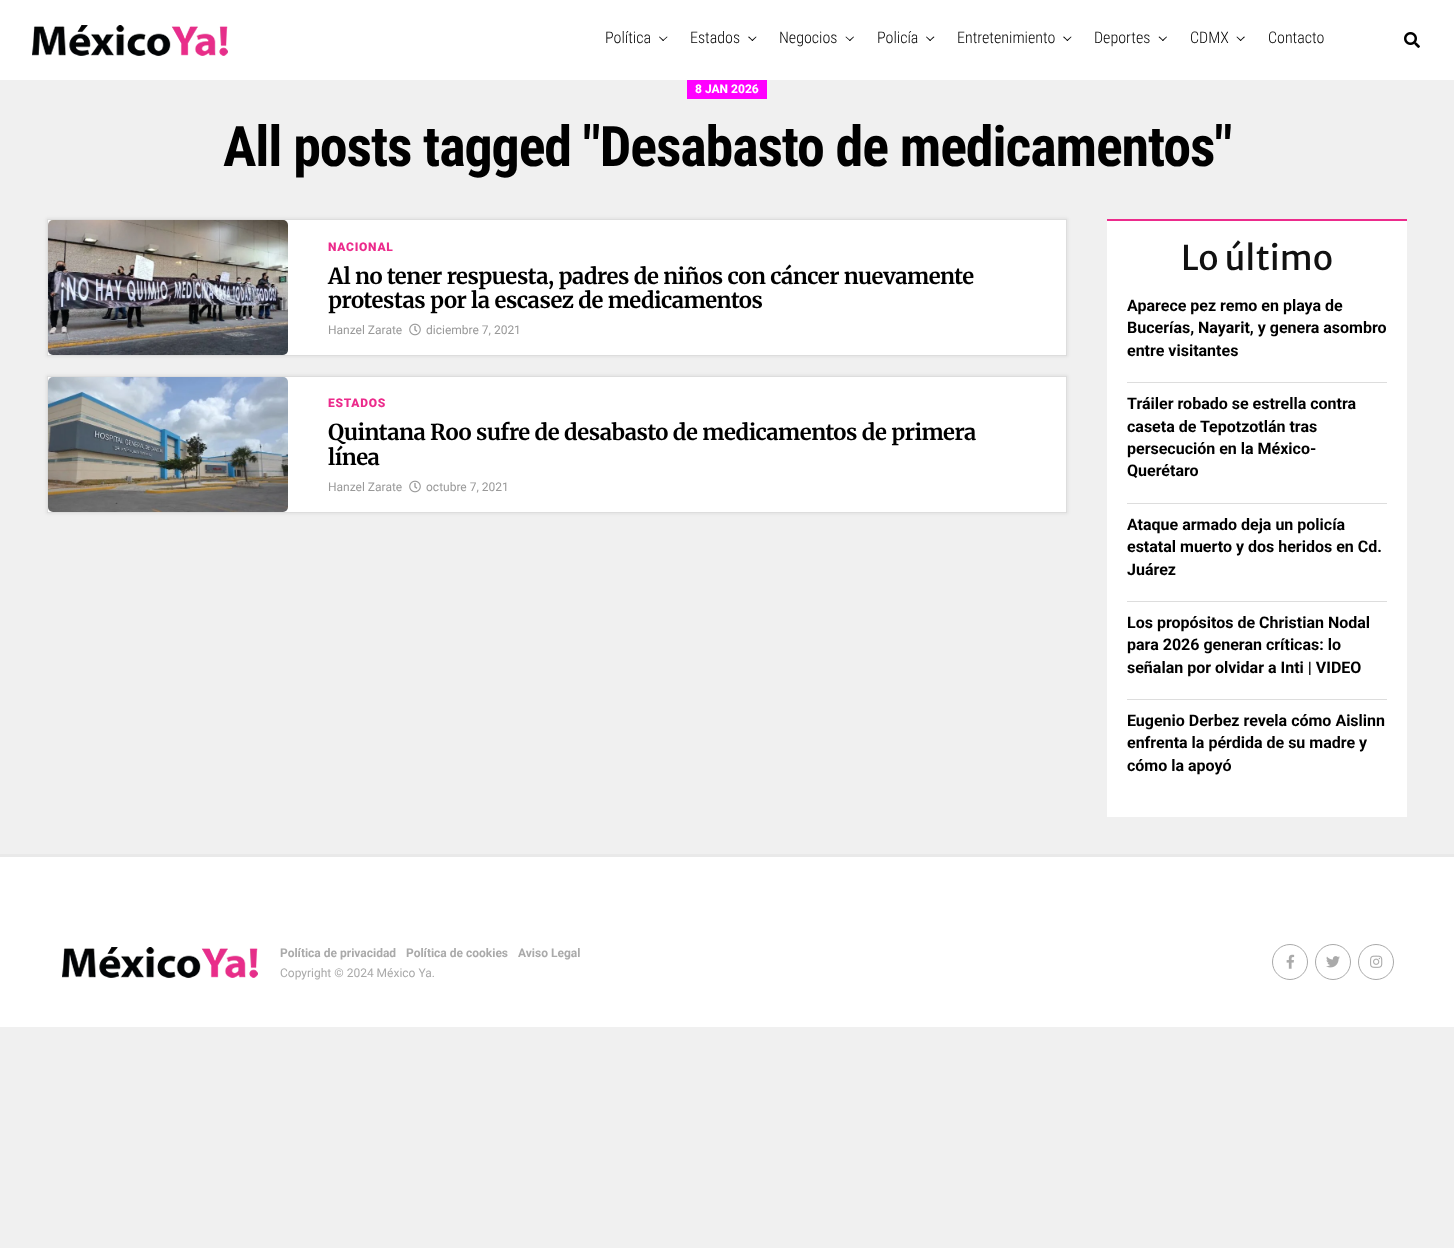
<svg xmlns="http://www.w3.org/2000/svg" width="1454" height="1248">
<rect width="100%" height="100%" fill="#f0f0f0"/>
<rect width="1454" height="80" fill="#fff"/>
<image x="32" y="25" width="196" height="31" href="media/1.png"/>
<text x="605" y="43" style="font-family:Roboto Condensed;font-size:16px;font-weight:300;fill:#000">Política</text>
<path d="M667 36.5l.5 .5l-4.5 4l-.5-.5z" fill="#000"/>
<path d="M659.5 36.5l4.5 4l-1 .5l-4-4z" fill="#000"/>
<text x="690" y="43" style="font-family:Roboto Condensed;font-size:16px;font-weight:300;fill:#000">Estados</text>
<path d="M756 36.5l.5 .5l-4 4l-1-.5z" fill="#000"/>
<path d="M749 36.5l4 4l-.5 .5l-4.5-4z" fill="#000"/>
<text x="779" y="43" style="font-family:Roboto Condensed;font-size:16px;font-weight:300;fill:#000">Negocios</text>
<path d="M853.5 36.5l.5 .5l-4 4l-1-.5z" fill="#000"/>
<path d="M846 36.5l4.5 4l-.5 .5l-4.5-4z" fill="#000"/>
<text x="877" y="43" style="font-family:Roboto Condensed;font-size:16px;font-weight:300;fill:#000">Policía</text>
<path d="M933.5 36.5l1 .5l-4.5 4l-.5-.5z" fill="#000"/>
<path d="M926.5 36.5l4.5 4l-1 .5l-4-4z" fill="#000"/>
<text x="957" y="43" style="font-family:Roboto Condensed;font-size:16px;font-weight:300;fill:#000">Entretenimiento</text>
<path d="M1071 36.5l.5 .5l-4 4l-1-.5z" fill="#000"/>
<path d="M1064 36.5l4 4l-.5 .5l-4.5-4z" fill="#000"/>
<text x="1094" y="43" style="font-family:Roboto Condensed;font-size:16px;font-weight:300;fill:#000">Deportes</text>
<path d="M1166.5 36.5l.5 .5l-4 4l-1-.5z" fill="#000"/>
<path d="M1159.5 36.5l4 4l-.5 .5l-4.5-4z" fill="#000"/>
<text x="1190" y="43" style="font-family:Roboto Condensed;font-size:16px;font-weight:300;fill:#000">CDMX</text>
<path d="M1244 36.5l1 .5l-4.5 4l-.5-.5z" fill="#000"/>
<path d="M1237 36.5l4.5 4l-1 .5l-4-4z" fill="#000"/>
<text x="1268" y="43" style="font-family:Roboto Condensed;font-size:16px;font-weight:300;fill:#000">Contacto</text>
<image x="1404" y="32" width="16" height="16" href="media/2.png"/>
<rect x="687" y="80" width="80" height="19" fill="#f0f"/>
<text x="695" y="93" style="font-family:Roboto;font-size:12px;font-weight:800;fill:#fff">8 JAN 2026</text>
<text x="223" y="166" style="font-family:Roboto Condensed;font-size:56px;font-weight:bold;letter-spacing:-1.1px;fill:#000">All posts tagged "Desabasto de medicamentos"</text>
<rect x="46" y="218" width="1022" height="139" fill="#0000000f" filter="blur(1.5px)"/>
<rect x="47.5" y="219.5" width="1019" height="136" fill="#fff" stroke="#ddd"/>
<image x="48" y="220" width="240" height="135" href="media/3.png"/>
<text x="328" y="251" style="font-family:Roboto;font-size:12px;font-weight:900;letter-spacing:0.75px;fill:#ec2b8c">NACIONAL</text>
<text x="328" y="284" style="font-family:Merriweather;font-size:22px;font-weight:bold;letter-spacing:-0.45px;fill:#000">Al no tener respuesta, padres de niños con cáncer nuevamente</text>
<text x="328" y="308" style="font-family:Merriweather;font-size:22px;font-weight:bold;letter-spacing:-0.45px;fill:#000">protestas por la escasez de medicamentos</text>
<text x="328" y="334" style="font-family:Roboto;font-size:12px;fill:#999">Hanzel Zarate</text>
<image x="409" y="323" width="12" height="13" href="media/4.png"/>
<text x="426" y="334" style="font-family:Roboto;font-size:12px;fill:#999">diciembre 7, 2021</text>
<rect x="46" y="375" width="1022" height="139" fill="#0000000f" filter="blur(1.5px)"/>
<rect x="47.5" y="376.5" width="1019" height="136" fill="#fff" stroke="#ddd"/>
<image x="48" y="377" width="240" height="135" href="media/5.png"/>
<text x="328" y="407" style="font-family:Roboto;font-size:12px;font-weight:900;letter-spacing:0.75px;fill:#ec2b8c">ESTADOS</text>
<text x="328" y="440" style="font-family:Merriweather;font-size:22px;font-weight:bold;letter-spacing:-0.45px;fill:#000">Quintana Roo sufre de desabasto de medicamentos de primera</text>
<text x="328" y="465" style="font-family:Merriweather;font-size:22px;font-weight:bold;letter-spacing:-0.45px;fill:#000">línea</text>
<text x="328" y="491" style="font-family:Roboto;font-size:12px;fill:#999">Hanzel Zarate</text>
<image x="409" y="480" width="12" height="13" href="media/4.png"/>
<text x="426" y="491" style="font-family:Roboto;font-size:12px;fill:#999">octubre 7, 2021</text>
<rect x="1107" y="221" width="300" height="596" fill="#fff"/>
<rect x="1107" y="219" width="300" height="2" fill="#ec2b8c"/>
<text x="1181" y="270" style="font-family:Merriweather Sans;font-size:34px;fill:#111">Lo último</text>
<text x="1127" y="311" style="font-family:Roboto;font-size:16px;font-weight:bold;fill:#000">Aparece pez remo en playa de</text>
<text x="1127" y="333" style="font-family:Roboto;font-size:16px;font-weight:bold;fill:#000">Bucerías, Nayarit, y genera asombro</text>
<text x="1127" y="356" style="font-family:Roboto;font-size:16px;font-weight:bold;fill:#000">entre visitantes</text>
<rect x="1127" y="382" width="260" height="1" fill="#ddd"/>
<text x="1127" y="409" style="font-family:Roboto;font-size:16px;font-weight:bold;fill:#000">Tráiler robado se estrella contra</text>
<text x="1127" y="432" style="font-family:Roboto;font-size:16px;font-weight:bold;fill:#000">caseta de Tepotzotlán tras</text>
<text x="1127" y="454" style="font-family:Roboto;font-size:16px;font-weight:bold;fill:#000">persecución en la México-</text>
<text x="1127" y="476" style="font-family:Roboto;font-size:16px;font-weight:bold;fill:#000">Querétaro</text>
<rect x="1127" y="503" width="260" height="1" fill="#ddd"/>
<text x="1127" y="530" style="font-family:Roboto;font-size:16px;font-weight:bold;fill:#000">Ataque armado deja un policía</text>
<text x="1127" y="552" style="font-family:Roboto;font-size:16px;font-weight:bold;fill:#000">estatal muerto y dos heridos en Cd.</text>
<text x="1127" y="575" style="font-family:Roboto;font-size:16px;font-weight:bold;fill:#000">Juárez</text>
<rect x="1127" y="601" width="260" height="1" fill="#ddd"/>
<text x="1127" y="628" style="font-family:Roboto;font-size:16px;font-weight:bold;fill:#000">Los propósitos de Christian Nodal</text>
<text x="1127" y="650" style="font-family:Roboto;font-size:16px;font-weight:bold;fill:#000">para 2026 generan críticas: lo</text>
<text x="1127" y="673" style="font-family:Roboto;font-size:16px;font-weight:bold;fill:#000">señalan por olvidar a Inti | VIDEO</text>
<rect x="1127" y="699" width="260" height="1" fill="#ddd"/>
<text x="1127" y="726" style="font-family:Roboto;font-size:16px;font-weight:bold;fill:#000">Eugenio Derbez revela cómo Aislinn</text>
<text x="1127" y="748" style="font-family:Roboto;font-size:16px;font-weight:bold;fill:#000">enfrenta la pérdida de su madre y</text>
<text x="1127" y="771" style="font-family:Roboto;font-size:16px;font-weight:bold;fill:#000">cómo la apoyó</text>
<rect y="857" width="1454" height="170" fill="#fff"/>
<rect y="854" width="1454" height="3" fill="#e9e9e9"/>
<image x="62" y="947" width="196" height="31" href="media/1.png"/>
<text x="280" y="957" style="font-family:Roboto;font-size:12px;font-weight:bold;fill:#aaa">Política de privacidad</text>
<text x="406" y="957" style="font-family:Roboto;font-size:12px;font-weight:bold;fill:#aaa">Política de cookies</text>
<text x="518" y="957" style="font-family:Roboto;font-size:12px;font-weight:bold;fill:#aaa">Aviso Legal</text>
<text x="280" y="977" style="font-family:Roboto;font-size:12px;fill:#aaa">Copyright © 2024 México Ya.</text>
<circle cx="1290" cy="962" r="17.5" fill="none" stroke="#aaa"/>
<image x="1286" y="954" width="9" height="15" href="media/6.png"/>
<circle cx="1333" cy="962" r="17.5" fill="none" stroke="#aaa"/>
<image x="1326" y="956" width="14" height="12" href="media/7.png"/>
<circle cx="1376" cy="962" r="17.5" fill="none" stroke="#aaa"/>
<image x="1370" y="955" width="13" height="13" href="media/8.png"/>
</svg>
